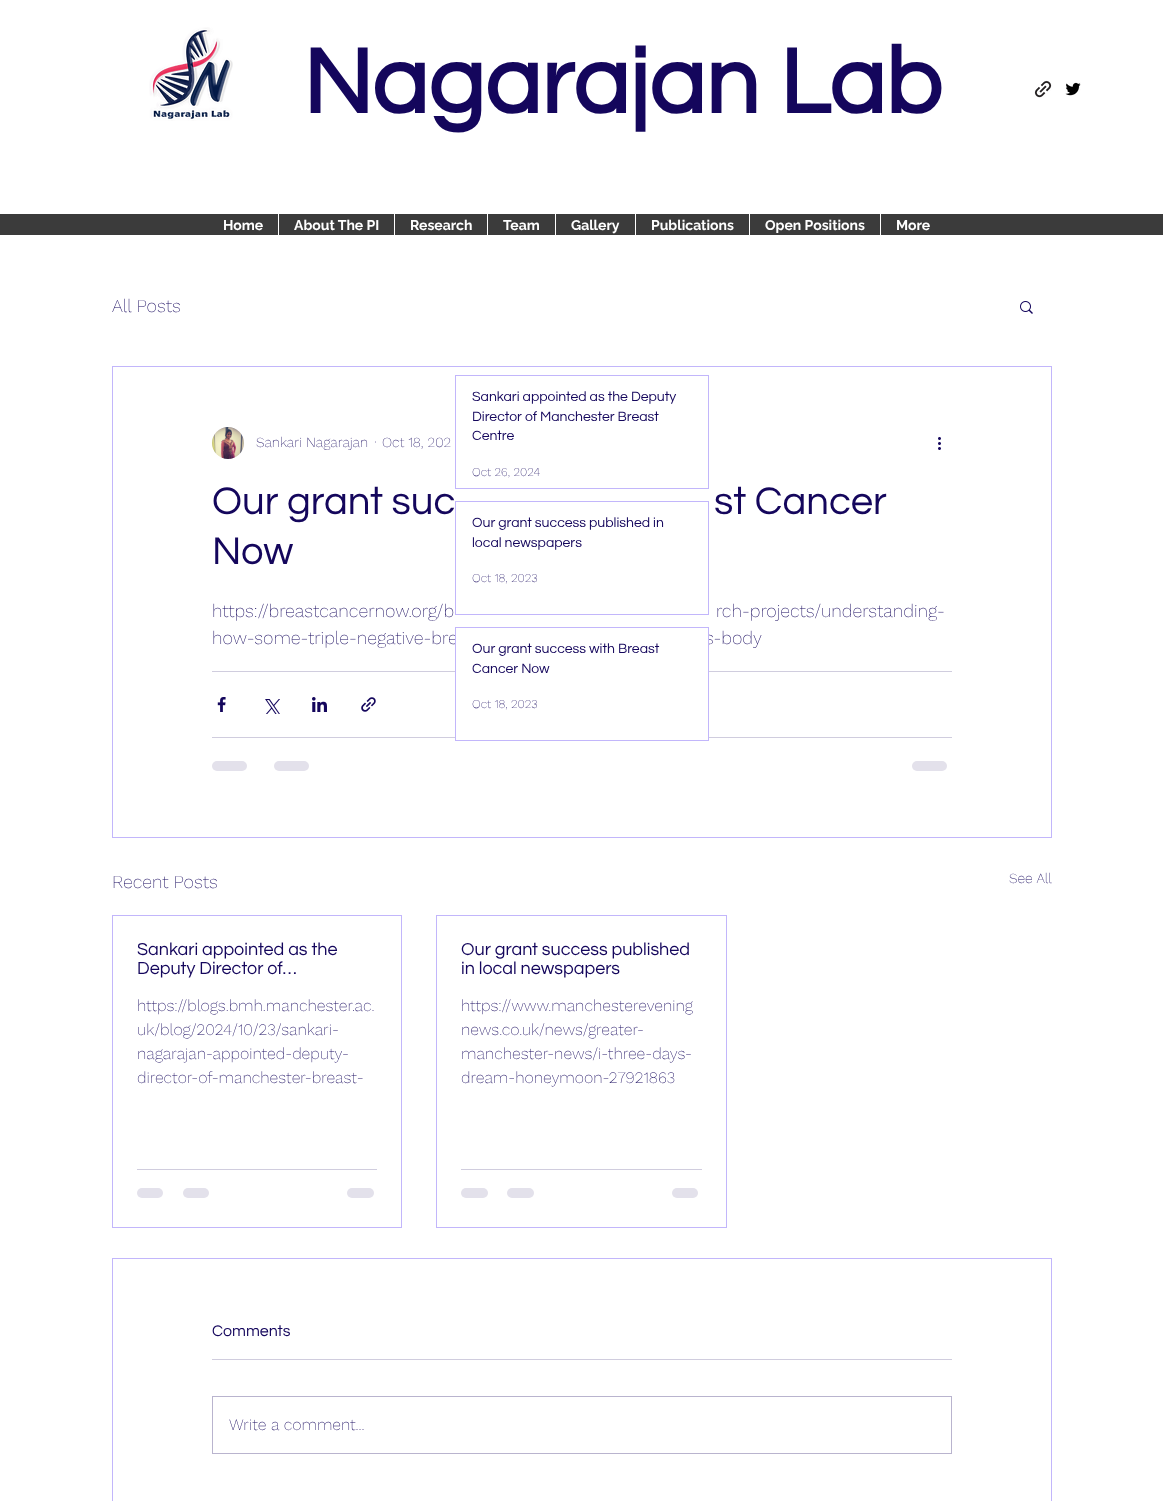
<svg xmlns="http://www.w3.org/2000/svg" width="1163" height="1501">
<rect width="100%" height="100%" fill="#fff"/>
<image x="149" y="27" width="84" height="94" href="media/1.png"/>
<text x="303" y="113" style="font-family:Questrial;font-size:95px;font-weight:bold;fill:#14065c">Nagarajan Lab</text>
<image x="1034" y="80" width="18" height="18" href="media/2.png"/>
<image x="1065" y="82" width="16" height="14" href="media/3.png"/>
<rect y="214" width="1163" height="21" fill="#3b3b3b"/>
<text x="223" y="230" style="font-family:Raleway;font-size:14px;font-weight:bold;fill:#fff">Home</text>
<rect x="278" y="210" width="1" height="30" fill="#fff"/>
<text x="294" y="230" style="font-family:Raleway;font-size:14px;font-weight:bold;fill:#fff">About The PI</text>
<rect x="394" y="210" width="1" height="30" fill="#fff"/>
<text x="410" y="230" style="font-family:Raleway;font-size:14px;font-weight:bold;fill:#fff">Research</text>
<rect x="487" y="210" width="1" height="30" fill="#fff"/>
<text x="503" y="230" style="font-family:Raleway;font-size:14px;font-weight:bold;fill:#fff">Team</text>
<rect x="555" y="210" width="1" height="30" fill="#fff"/>
<text x="571" y="230" style="font-family:Raleway;font-size:14px;font-weight:bold;fill:#fff">Gallery</text>
<rect x="635" y="210" width="1" height="30" fill="#fff"/>
<text x="651" y="230" style="font-family:Raleway;font-size:14px;font-weight:bold;fill:#fff">Publications</text>
<rect x="749" y="210" width="1" height="30" fill="#fff"/>
<text x="765" y="230" style="font-family:Raleway;font-size:14px;font-weight:bold;fill:#fff">Open Positions</text>
<rect x="880" y="210" width="1" height="30" fill="#fff"/>
<text x="896" y="230" style="font-family:Raleway;font-size:14px;font-weight:bold;fill:#fff">More</text>
<text x="112" y="312" style="font-family:Work Sans;font-size:18px;font-weight:200;fill:#14065c">All Posts</text>
<image x="1020" y="301" width="13" height="13" href="media/4.png"/>
<rect x="112.5" y="366.5" width="939" height="471" fill="none" stroke="#c2b6fb"/>
<image x="212" y="427" width="32" height="32" href="media/5.png"/>
<text x="256" y="447" style="font-family:Work Sans;font-size:14px;font-weight:200;fill:#14065c">Sankari Nagarajan</text>
<text x="374" y="447" style="font-family:Work Sans;font-size:14px;font-weight:200;fill:#14065c">·</text>
<text x="382" y="447" style="font-family:Work Sans;font-size:14px;font-weight:200;fill:#14065c">Oct 18, 202</text>
<image x="938" y="437" width="3" height="13" href="media/6.png"/>
<text x="212" y="514" style="font-family:Questrial;font-size:40px;fill:#14065c">Our grant suc</text>
<text x="714" y="514" style="font-family:Questrial;font-size:40px;fill:#14065c">st Cancer</text>
<text x="212" y="564" style="font-family:Questrial;font-size:40px;fill:#14065c">Now</text>
<text x="212" y="617" style="font-family:Work Sans;font-size:18px;font-weight:200;fill:#14065c">https://breastcancernow.org/b</text>
<text x="716" y="617" style="font-family:Work Sans;font-size:18px;font-weight:200;fill:#14065c">rch-projects/understanding-</text>
<text x="212" y="644" style="font-family:Work Sans;font-size:18px;font-weight:200;fill:#14065c">how-some-triple-negative-bre</text>
<text x="705" y="644" style="font-family:Work Sans;font-size:18px;font-weight:200;fill:#14065c">s-body</text>
<rect x="212" y="671" width="740" height="1" fill="#d0cdde"/>
<image x="217" y="697" width="9" height="15" href="media/7.png"/>
<image x="265" y="699" width="15" height="15" href="media/8.png"/>
<image x="312" y="697" width="15" height="15" href="media/9.png"/>
<image x="361" y="697" width="15" height="15" href="media/10.png"/>
<rect x="212" y="737" width="740" height="1" fill="#d0cdde"/>
<rect x="212" y="761" width="35" height="10" rx="5" fill="#e3e1eb"/>
<rect x="274" y="761" width="35" height="10" rx="5" fill="#e3e1eb"/>
<rect x="912" y="761" width="35" height="10" rx="5" fill="#e3e1eb"/>
<text x="112" y="888" style="font-family:Work Sans;font-size:18px;font-weight:200;fill:#14065c">Recent Posts</text>
<text x="1009" y="883" style="font-family:Work Sans;font-size:14px;font-weight:200;fill:#14065c">See All</text>
<rect x="112.5" y="915.5" width="289" height="312" fill="none" stroke="#c2b6fb"/>
<text x="137" y="955" style="font-family:Questrial;font-size:18px;fill:#14065c">Sankari appointed as the</text>
<text x="137" y="974" style="font-family:Questrial;font-size:18px;fill:#14065c">Deputy Director of…</text>
<text x="137" y="1011" style="font-family:Work Sans;font-size:16px;font-weight:200;fill:#14065c">https://blogs.bmh.manchester.ac.</text>
<text x="137" y="1035" style="font-family:Work Sans;font-size:16px;font-weight:200;fill:#14065c">uk/blog/2024/10/23/sankari-</text>
<text x="137" y="1059" style="font-family:Work Sans;font-size:16px;font-weight:200;fill:#14065c">nagarajan-appointed-deputy-</text>
<text x="137" y="1083" style="font-family:Work Sans;font-size:16px;font-weight:200;fill:#14065c">director-of-manchester-breast-</text>
<rect x="137" y="1169" width="240" height="1" fill="#d0cdde"/>
<rect x="137" y="1188" width="26" height="10" rx="5" fill="#e3e1eb"/>
<rect x="183" y="1188" width="26" height="10" rx="5" fill="#e3e1eb"/>
<rect x="347" y="1188" width="27" height="10" rx="5" fill="#e3e1eb"/>
<rect x="436.5" y="915.5" width="290" height="312" fill="none" stroke="#c2b6fb"/>
<text x="461" y="955" style="font-family:Questrial;font-size:18px;fill:#14065c">Our grant success published</text>
<text x="461" y="974" style="font-family:Questrial;font-size:18px;fill:#14065c">in local newspapers</text>
<text x="461" y="1011" style="font-family:Work Sans;font-size:16px;font-weight:200;fill:#14065c">https://www.manchesterevening</text>
<text x="461" y="1035" style="font-family:Work Sans;font-size:16px;font-weight:200;fill:#14065c">news.co.uk/news/greater-</text>
<text x="461" y="1059" style="font-family:Work Sans;font-size:16px;font-weight:200;fill:#14065c">manchester-news/i-three-days-</text>
<text x="461" y="1083" style="font-family:Work Sans;font-size:16px;font-weight:200;fill:#14065c">dream-honeymoon-27921863</text>
<rect x="461" y="1169" width="241" height="1" fill="#d0cdde"/>
<rect x="461" y="1188" width="27" height="10" rx="5" fill="#e3e1eb"/>
<rect x="507" y="1188" width="27" height="10" rx="5" fill="#e3e1eb"/>
<rect x="672" y="1188" width="26" height="10" rx="5" fill="#e3e1eb"/>
<rect x="112.5" y="1258.5" width="939" height="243" fill="none" stroke="#c2b6fb"/>
<text x="212" y="1336" style="font-family:Questrial;font-size:16px;fill:#14065c">Comments</text>
<rect x="212" y="1359" width="740" height="1" fill="#d0cdde"/>
<rect x="212.5" y="1396.5" width="739" height="57" fill="none" stroke="#b9b4ce"/>
<text x="229" y="1430" style="font-family:Work Sans;font-size:16px;font-weight:200;fill:#14065c">Write a comment...</text>
<rect x="455.5" y="375.5" width="253" height="113" fill="none" stroke="#c2b6fb"/>
<text x="472" y="401" style="font-family:Questrial;font-size:14px;fill:#14065c">Sankari appointed as the Deputy</text>
<text x="472" y="421" style="font-family:Questrial;font-size:14px;fill:#14065c">Director of Manchester Breast</text>
<text x="472" y="440" style="font-family:Questrial;font-size:14px;fill:#14065c">Centre</text>
<text x="472" y="476" style="font-family:Work Sans;font-size:12px;font-weight:200;fill:#14065c">Oct 26, 2024</text>
<rect x="455.5" y="501.5" width="253" height="113" fill="none" stroke="#c2b6fb"/>
<text x="472" y="527" style="font-family:Questrial;font-size:14px;fill:#14065c">Our grant success published in</text>
<text x="472" y="547" style="font-family:Questrial;font-size:14px;fill:#14065c">local newspapers</text>
<text x="472" y="582" style="font-family:Work Sans;font-size:12px;font-weight:200;fill:#14065c">Oct 18, 2023</text>
<rect x="456" y="635" width="252" height="103" fill="#fff"/>
<rect x="455.5" y="627.5" width="253" height="113" fill="none" stroke="#c2b6fb"/>
<text x="472" y="653" style="font-family:Questrial;font-size:14px;fill:#14065c">Our grant success with Breast</text>
<text x="472" y="673" style="font-family:Questrial;font-size:14px;fill:#14065c">Cancer Now</text>
<text x="472" y="708" style="font-family:Work Sans;font-size:12px;font-weight:200;fill:#14065c">Oct 18, 2023</text>
</svg>
